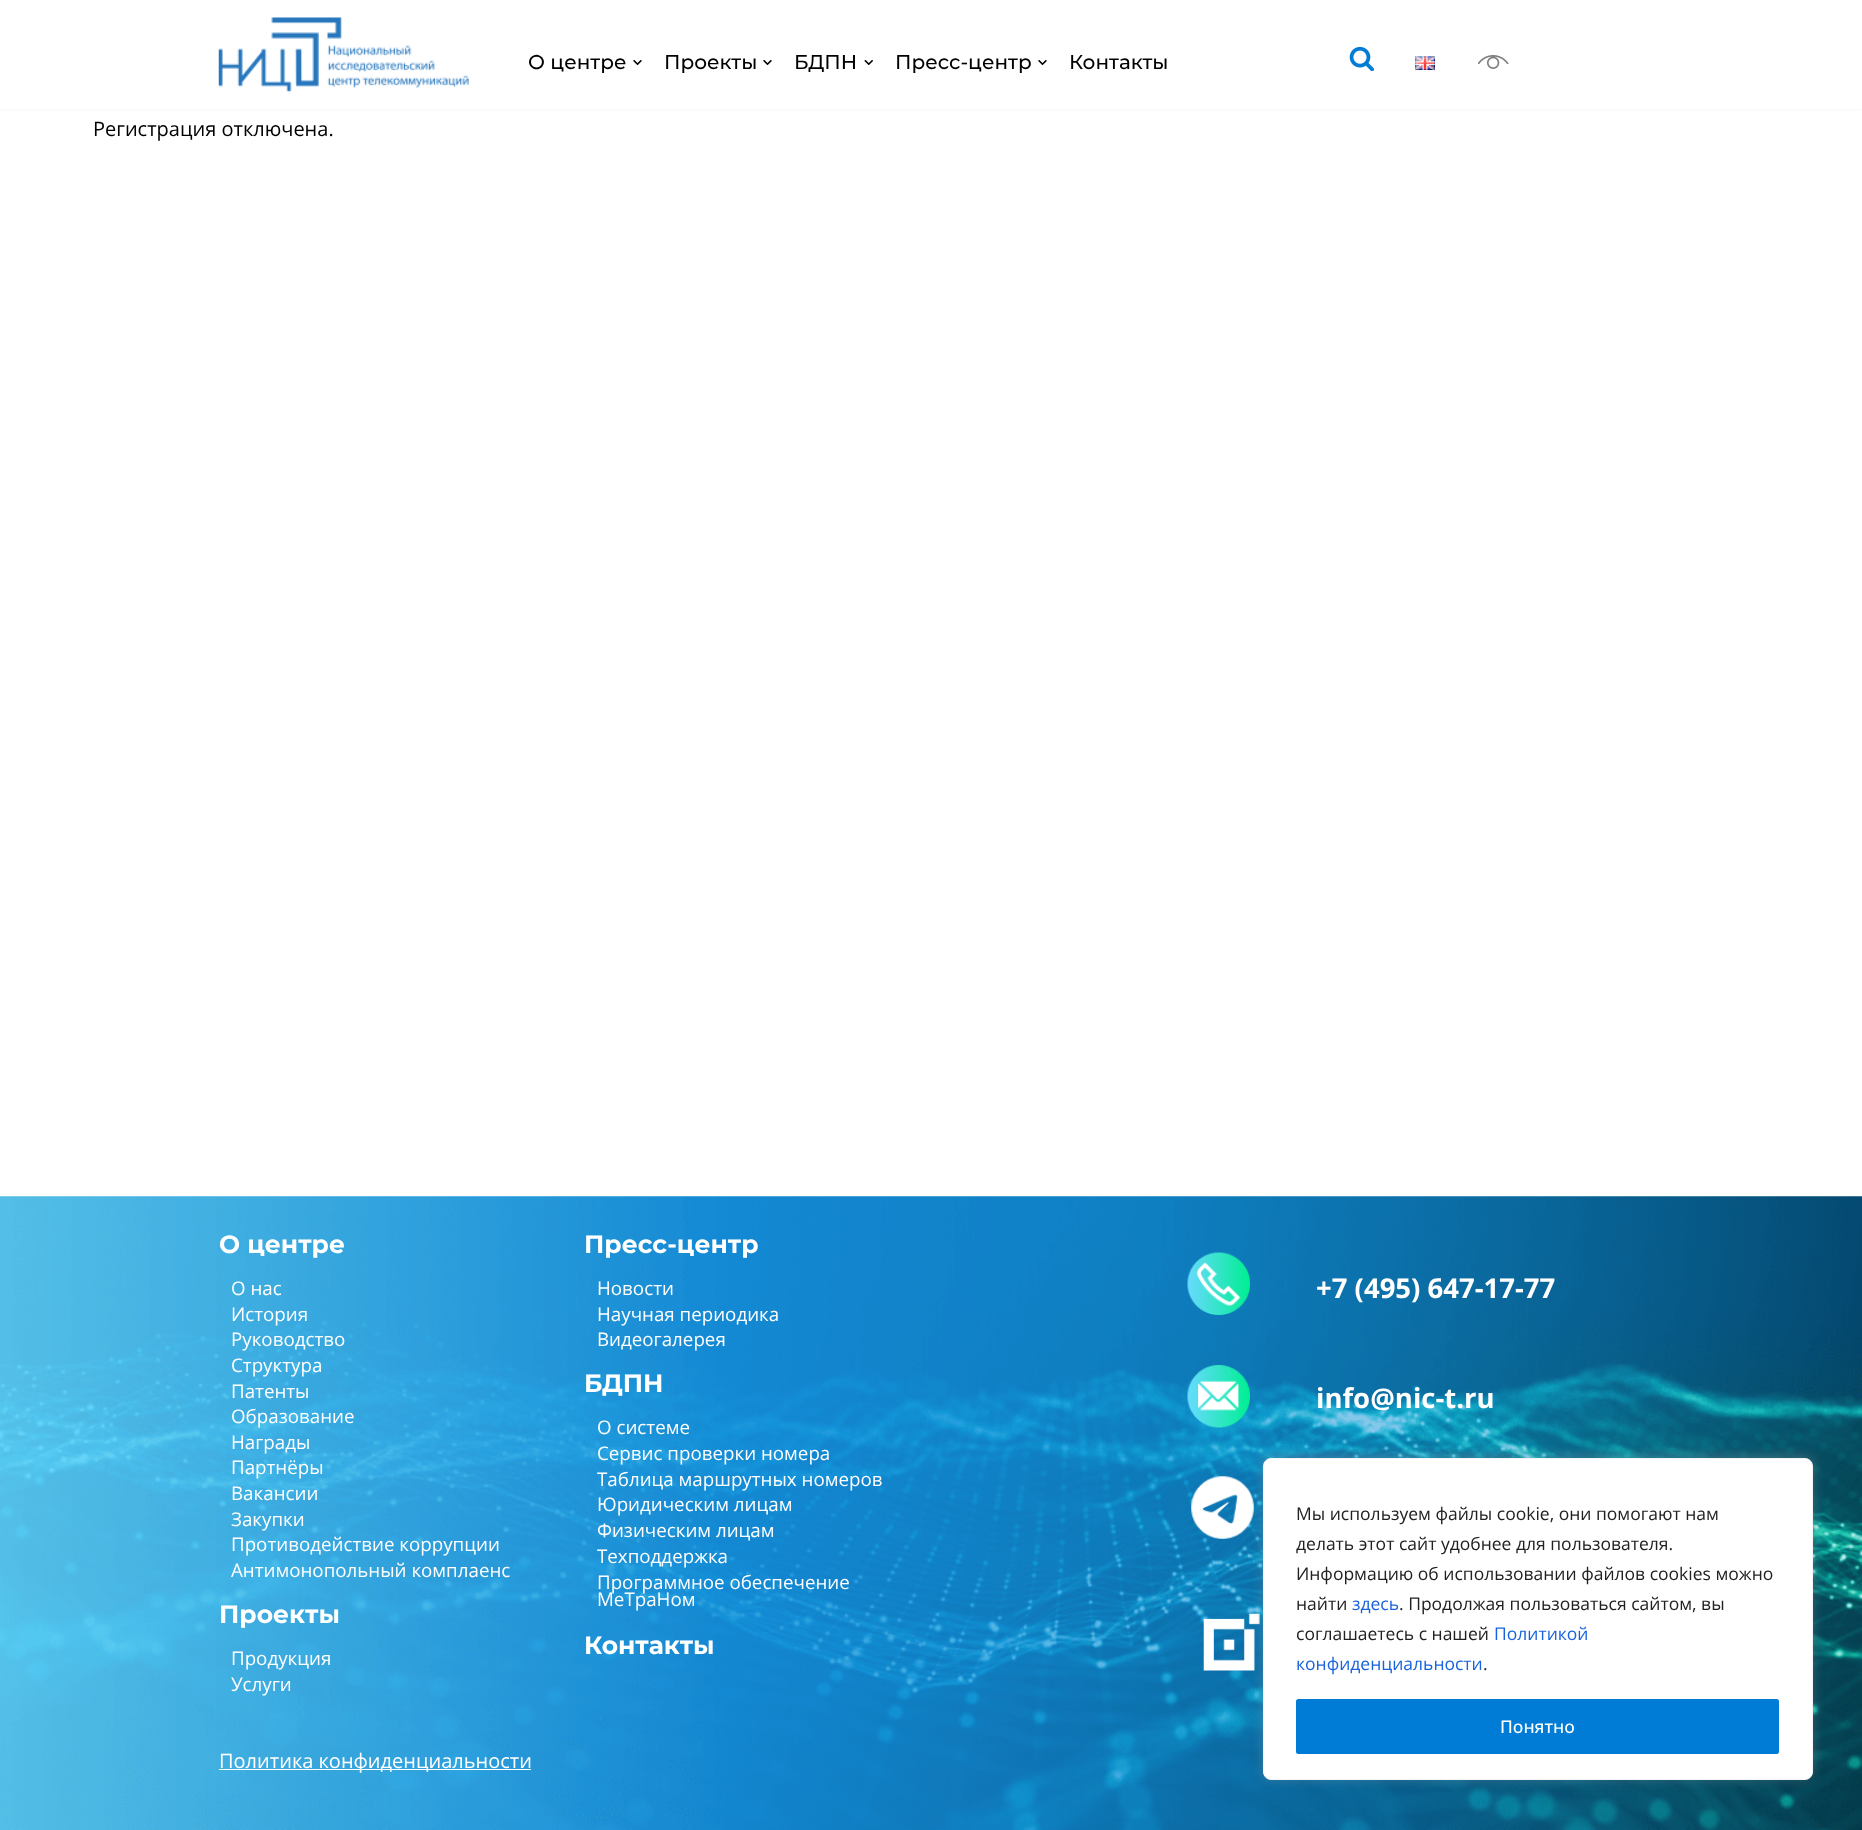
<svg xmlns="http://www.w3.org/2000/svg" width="1862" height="1830">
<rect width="100%" height="100%" fill="#fff"/>
<rect y="-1" width="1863" height="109" fill="#0000001a" filter="blur(2px)"/>
<rect width="1862" height="109" fill="#fff"/>
<image x="218" y="17" width="251" height="75" href="media/1.png"/>
<text x="528" y="69" style="font-family:Montserrat;font-size:20px;font-weight:500;fill:#000">О центре</text>
<image x="633" y="60" width="9" height="5" href="media/2.png"/>
<text x="664" y="69" style="font-family:Montserrat;font-size:20px;font-weight:500;fill:#000">Проекты</text>
<image x="763" y="60" width="9" height="5" href="media/2.png"/>
<text x="794" y="69" style="font-family:Montserrat;font-size:20px;font-weight:500;fill:#000">БДПН</text>
<image x="864" y="60" width="9" height="5" href="media/3.png"/>
<text x="895" y="69" style="font-family:Montserrat;font-size:20px;font-weight:500;fill:#000">Пресс-центр</text>
<image x="1038" y="60" width="9" height="5" href="media/2.png"/>
<text x="1069" y="69" style="font-family:Montserrat;font-size:20px;font-weight:500;fill:#000">Контакты</text>
<image x="1349" y="46" width="25" height="25" href="media/4.png"/>
<image x="1415" y="56" width="20" height="14" href="media/5.png"/>
<image x="1478" y="55" width="31" height="14" href="media/6.png"/>
<text x="93" y="136" style="font-family:Open Sans;font-size:20px;fill:#000">Регистрация отключена.</text>
<image x="0" y="1196" width="1862" height="634" href="media/7.png"/>
<text x="219" y="1253" style="font-family:Montserrat;font-size:25px;font-weight:bold;fill:#fff">О центре</text>
<text x="231" y="1295" style="font-family:Open Sans;font-size:18.75px;fill:#fff">О нас</text>
<text x="231" y="1321" style="font-family:Open Sans;font-size:18.75px;fill:#fff">История</text>
<text x="231" y="1346" style="font-family:Open Sans;font-size:18.75px;fill:#fff">Руководство</text>
<text x="231" y="1372" style="font-family:Open Sans;font-size:18.75px;fill:#fff">Структура</text>
<text x="231" y="1398" style="font-family:Open Sans;font-size:18.75px;fill:#fff">Патенты</text>
<text x="231" y="1423" style="font-family:Open Sans;font-size:18.75px;fill:#fff">Образование</text>
<text x="231" y="1449" style="font-family:Open Sans;font-size:18.75px;fill:#fff">Награды</text>
<text x="231" y="1474" style="font-family:Open Sans;font-size:18.75px;fill:#fff">Партнёры</text>
<text x="231" y="1500" style="font-family:Open Sans;font-size:18.75px;fill:#fff">Вакансии</text>
<text x="231" y="1526" style="font-family:Open Sans;font-size:18.75px;fill:#fff">Закупки</text>
<text x="231" y="1551" style="font-family:Open Sans;font-size:18.75px;fill:#fff">Противодействие коррупции</text>
<text x="231" y="1577" style="font-family:Open Sans;font-size:18.75px;fill:#fff">Антимонопольный комплаенс</text>
<text x="219" y="1623" style="font-family:Montserrat;font-size:25px;font-weight:bold;fill:#fff">Проекты</text>
<text x="231" y="1665" style="font-family:Open Sans;font-size:18.75px;fill:#fff">Продукция</text>
<text x="231" y="1691" style="font-family:Open Sans;font-size:18.75px;fill:#fff">Услуги</text>
<rect x="219" y="1769" width="312" height="1" fill="#fff"/>
<text x="219" y="1768" style="font-family:Open Sans;font-size:20px;fill:#fff">Политика конфиденциальности</text>
<text x="584" y="1253" style="font-family:Montserrat;font-size:25px;font-weight:bold;fill:#fff">Пресс-центр</text>
<text x="597" y="1295" style="font-family:Open Sans;font-size:18.75px;fill:#fff">Новости</text>
<text x="597" y="1321" style="font-family:Open Sans;font-size:18.75px;fill:#fff">Научная периодика</text>
<text x="597" y="1346" style="font-family:Open Sans;font-size:18.75px;fill:#fff">Видеогалерея</text>
<text x="584" y="1392" style="font-family:Montserrat;font-size:25px;font-weight:bold;fill:#fff">БДПН</text>
<text x="597" y="1434" style="font-family:Open Sans;font-size:18.75px;fill:#fff">О системе</text>
<text x="597" y="1460" style="font-family:Open Sans;font-size:18.75px;fill:#fff">Сервис проверки номера</text>
<text x="597" y="1486" style="font-family:Open Sans;font-size:18.75px;fill:#fff">Таблица маршрутных номеров</text>
<text x="597" y="1511" style="font-family:Open Sans;font-size:18.75px;fill:#fff">Юридическим лицам</text>
<text x="597" y="1537" style="font-family:Open Sans;font-size:18.75px;fill:#fff">Физическим лицам</text>
<text x="597" y="1563" style="font-family:Open Sans;font-size:18.75px;fill:#fff">Техподдержка</text>
<text x="597" y="1589" style="font-family:Open Sans;font-size:18.75px;fill:#fff">Программное обеспечение</text>
<text x="597" y="1606" style="font-family:Open Sans;font-size:18.75px;fill:#fff">МеТраНом</text>
<text x="584" y="1654" style="font-family:Montserrat;font-size:25px;font-weight:bold;fill:#fff">Контакты</text>
<image x="1187" y="1252" width="63" height="63" href="media/8.png"/>
<image x="1187" y="1365" width="63" height="63" href="media/9.png"/>
<text x="1316" y="1298" style="font-family:Open Sans;font-size:27.5px;font-weight:bold;fill:#fff">+7 (495) 647-17-77</text>
<text x="1316" y="1408" style="font-family:Open Sans;font-size:27.5px;font-weight:bold;fill:#fff">info@nic-t.ru</text>
<image x="1191" y="1476" width="63" height="63" href="media/10.png"/>
<image x="1203" y="1613" width="57" height="58" href="media/11.png"/>
<rect x="1263" y="1456" width="550" height="323" rx="8" fill="#acabab4d" filter="blur(6px)"/>
<rect x="1263.5" y="1458.5" width="549" height="321" rx="7.5" fill="#fff" stroke="#f4f4f4"/>
<text x="1296" y="1520" style="font-family:Open Sans;font-size:17.5px;fill:#212121">Мы используем файлы cookie, они помогают нам</text>
<text x="1296" y="1550" style="font-family:Open Sans;font-size:17.5px;fill:#212121">делать этот сайт удобнее для пользователя.</text>
<text x="1296" y="1580" style="font-family:Open Sans;font-size:17.5px;fill:#212121">Информацию об использовании файлов cookies можно</text>
<text x="1296" y="1610" style="font-family:Open Sans;font-size:17.5px;fill:#212121">найти</text>
<text x="1352" y="1610" style="font-family:Open Sans;font-size:17.5px;fill:#1863dc">здесь</text>
<text x="1399" y="1610" style="font-family:Open Sans;font-size:17.5px;fill:#212121">. Продолжая пользоваться сайтом, вы</text>
<text x="1296" y="1640" style="font-family:Open Sans;font-size:17.5px;fill:#212121">соглашаетесь с нашей</text>
<text x="1494" y="1640" style="font-family:Open Sans;font-size:17.5px;fill:#1863dc">Политикой</text>
<text x="1296" y="1670" style="font-family:Open Sans;font-size:17.5px;fill:#1863dc">конфиденциальности</text>
<text x="1483" y="1670" style="font-family:Open Sans;font-size:17.5px;fill:#212121">.</text>
<rect x="1297.5" y="1700.5" width="480" height="52" rx="1" fill="#007cd6" stroke="#007cd6" stroke-width="3"/>
<text x="1500" y="1733" style="font-family:Open Sans;font-size:17.5px;font-weight:500;fill:#fff">Понятно</text>
</svg>
